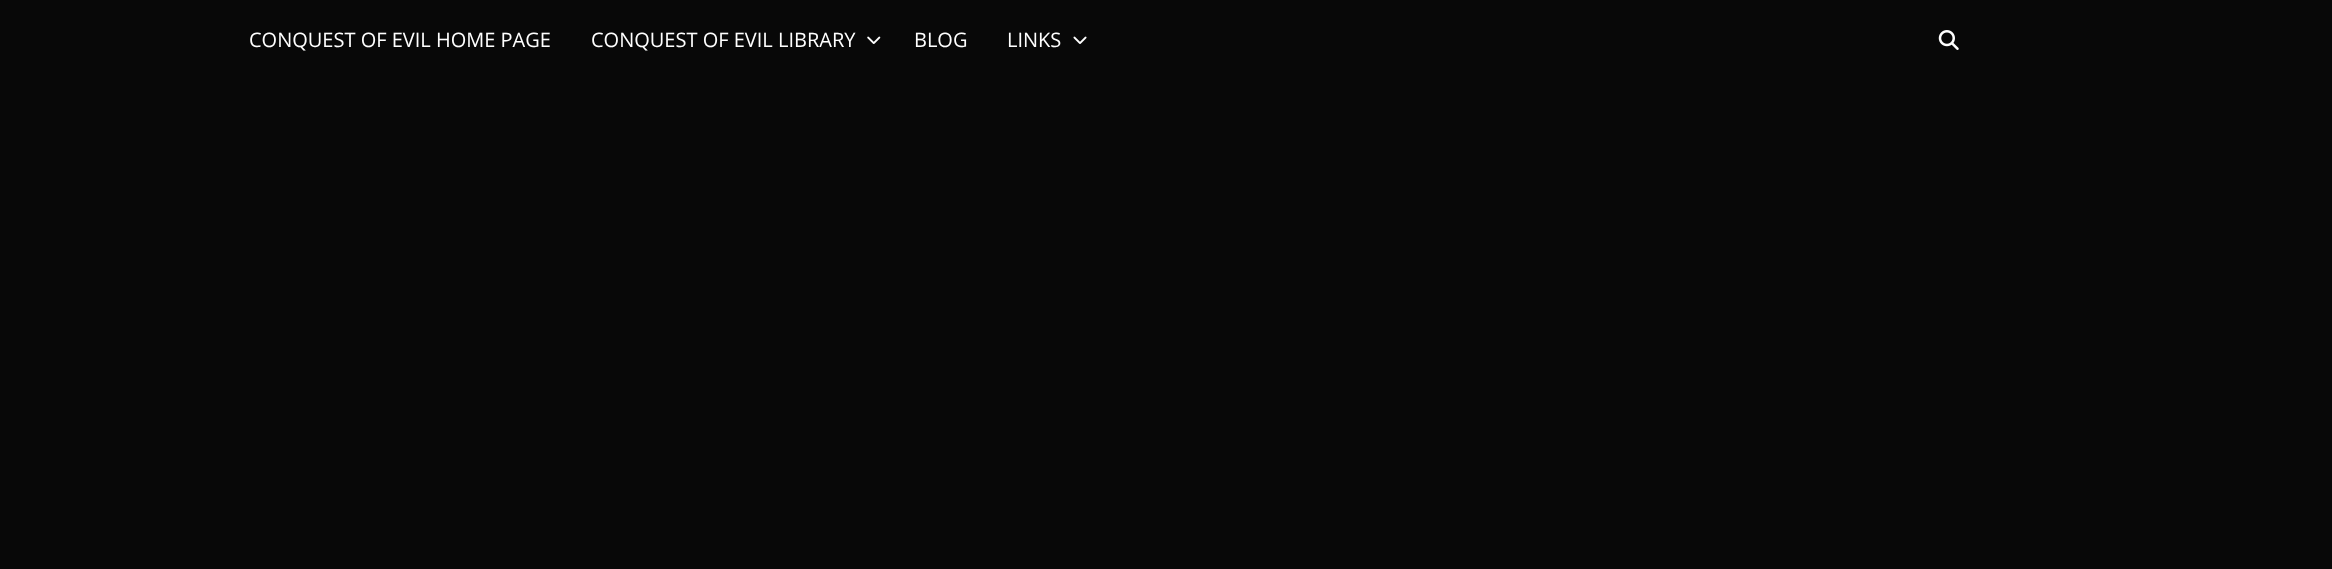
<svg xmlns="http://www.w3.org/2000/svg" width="2332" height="569">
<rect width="100%" height="100%" fill="#080808"/>
<text x="249" y="47" style="font-family:Open Sans;font-size:20px;fill:#fff">CONQUEST OF EVIL HOME PAGE</text>
<text x="591" y="47" style="font-family:Open Sans;font-size:20px;fill:#fff">CONQUEST OF EVIL LIBRARY</text>
<image x="867" y="36" width="14" height="8" href="media/1.png"/>
<text x="914" y="47" style="font-family:Open Sans;font-size:20px;fill:#fff">BLOG</text>
<text x="1007" y="47" style="font-family:Open Sans;font-size:20px;fill:#fff">LINKS</text>
<image x="1073" y="36" width="14" height="8" href="media/2.png"/>
<image x="1938" y="30" width="21" height="20" href="media/3.png"/>
</svg>
